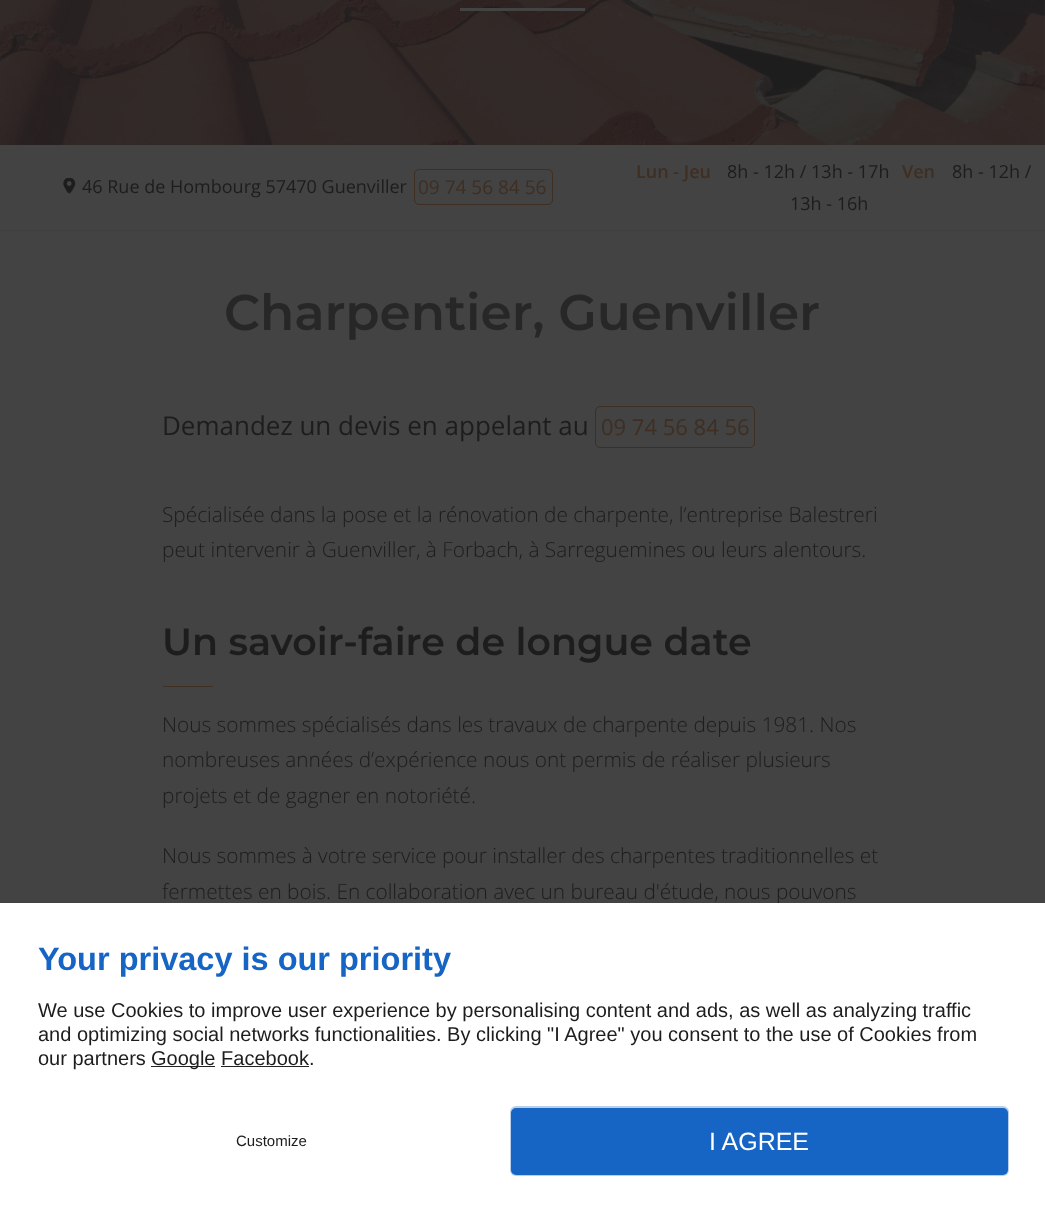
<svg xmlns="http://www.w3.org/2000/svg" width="1045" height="1212">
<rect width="100%" height="100%" fill="#434343"/>
<image x="0" y="0" width="1045" height="145" href="media/1.png"/>
<rect x="460" y="8" width="125" height="3" fill="#434343"/>
<image x="63" y="178" width="13" height="16" href="media/2.png"/>
<text x="82" y="193" style="font-family:Open Sans;font-size:18px;fill:#1d1d1d">46 Rue de Hombourg 57470 Guenviller</text>
<rect x="414.5" y="169.5" width="138" height="35" rx="4.5" fill="none" stroke="#3f2e22"/>
<text x="418" y="194" style="font-family:Open Sans;font-size:19px;fill:#3f2e22">09 74 56 84 56</text>
<text x="636" y="178" style="font-family:Open Sans;font-size:18px;font-weight:600;fill:#3f2e22">Lun - Jeu</text>
<text x="727" y="178" style="font-family:Open Sans;font-size:18px;fill:#1d1d1d">8h - 12h / 13h - 17h</text>
<text x="902" y="178" style="font-family:Open Sans;font-size:18px;font-weight:600;fill:#3f2e22">Ven</text>
<text x="952" y="178" style="font-family:Open Sans;font-size:18px;fill:#1d1d1d">8h - 12h /</text>
<text x="790" y="210" style="font-family:Open Sans;font-size:18px;fill:#1d1d1d">13h - 16h</text>
<rect y="230" width="1045" height="1" fill="#3e3f3f"/>
<text x="224" y="330" style="font-family:Montserrat;font-size:50px;font-weight:600;fill:#272727">Charpentier, Guenviller</text>
<text x="162" y="435" style="font-family:Open Sans;font-size:26px;fill:#1d1d1d">Demandez un devis en appelant au</text>
<rect x="595.5" y="406.5" width="159" height="41" rx="4.5" fill="none" stroke="#3f2e22"/>
<text x="601" y="435" style="font-family:Open Sans;font-size:22px;fill:#3f2e22">09 74 56 84 56</text>
<text x="162" y="522" style="font-family:Open Sans;font-size:20.8px;font-weight:300;fill:#1d1d1d">Spécialisée dans la pose et la rénovation de charpente, l’entreprise Balestreri</text>
<text x="162" y="557" style="font-family:Open Sans;font-size:20.8px;font-weight:300;fill:#1d1d1d">peut intervenir à Guenviller, à Forbach, à Sarreguemines ou leurs alentours.</text>
<text x="162" y="655" style="font-family:Montserrat;font-size:38px;font-weight:600;fill:#1d1d1d">Un savoir-faire de longue date</text>
<rect x="163" y="686" width="50" height="1" fill="#3f2e22"/>
<text x="162" y="732" style="font-family:Open Sans;font-size:20.8px;font-weight:300;fill:#1d1d1d">Nous sommes spécialisés dans les travaux de charpente depuis 1981. Nos</text>
<text x="162" y="767" style="font-family:Open Sans;font-size:20.8px;font-weight:300;fill:#1d1d1d">nombreuses années d’expérience nous ont permis de réaliser plusieurs</text>
<text x="162" y="803" style="font-family:Open Sans;font-size:20.8px;font-weight:300;fill:#1d1d1d">projets et de gagner en notoriété.</text>
<text x="162" y="863" style="font-family:Open Sans;font-size:20.8px;font-weight:300;fill:#1d1d1d">Nous sommes à votre service pour installer des charpentes traditionnelles et</text>
<text x="162" y="899" style="font-family:Open Sans;font-size:20.8px;font-weight:300;fill:#1d1d1d">fermettes en bois. En collaboration avec un bureau d'étude, nous pouvons</text>
<rect y="903" width="1045" height="309" fill="#fff"/>
<text x="38" y="970" style="font-family:Liberation Sans;font-size:32.5px;font-weight:bold;fill:#1665c4">Your privacy is our priority</text>
<text x="38" y="1017" style="font-family:Liberation Sans;font-size:20px;fill:#1d1d1d">We use Cookies to improve user experience by personalising content and ads, as well as analyzing traffic</text>
<text x="38" y="1041" style="font-family:Liberation Sans;font-size:20px;fill:#1d1d1d">and optimizing social networks functionalities. By clicking "I Agree" you consent to the use of Cookies from</text>
<text x="38" y="1065" style="font-family:Liberation Sans;font-size:20px;fill:#1d1d1d">our partners</text>
<rect x="151" y="1066" width="64" height="1" fill="#222"/>
<text x="151" y="1065" style="font-family:Liberation Sans;font-size:20px;fill:#1d1d1d">Google Facebook.</text>
<rect x="221" y="1066" width="88" height="1" fill="#222"/>
<text x="236" y="1146" style="font-family:Liberation Sans;font-size:15px;fill:#1d1d1d">Customize</text>
<rect x="510" y="1106" width="499" height="70" rx="6" fill="#1665c44d" filter="blur(0.5px)"/>
<rect x="512.5" y="1109.5" width="494" height="64" rx="3.5" fill="#1665c4" stroke="#1665c4" stroke-width="3"/>
<text x="709" y="1150" style="font-family:Liberation Sans;font-size:25px;fill:#fff">I AGREE</text>
</svg>
